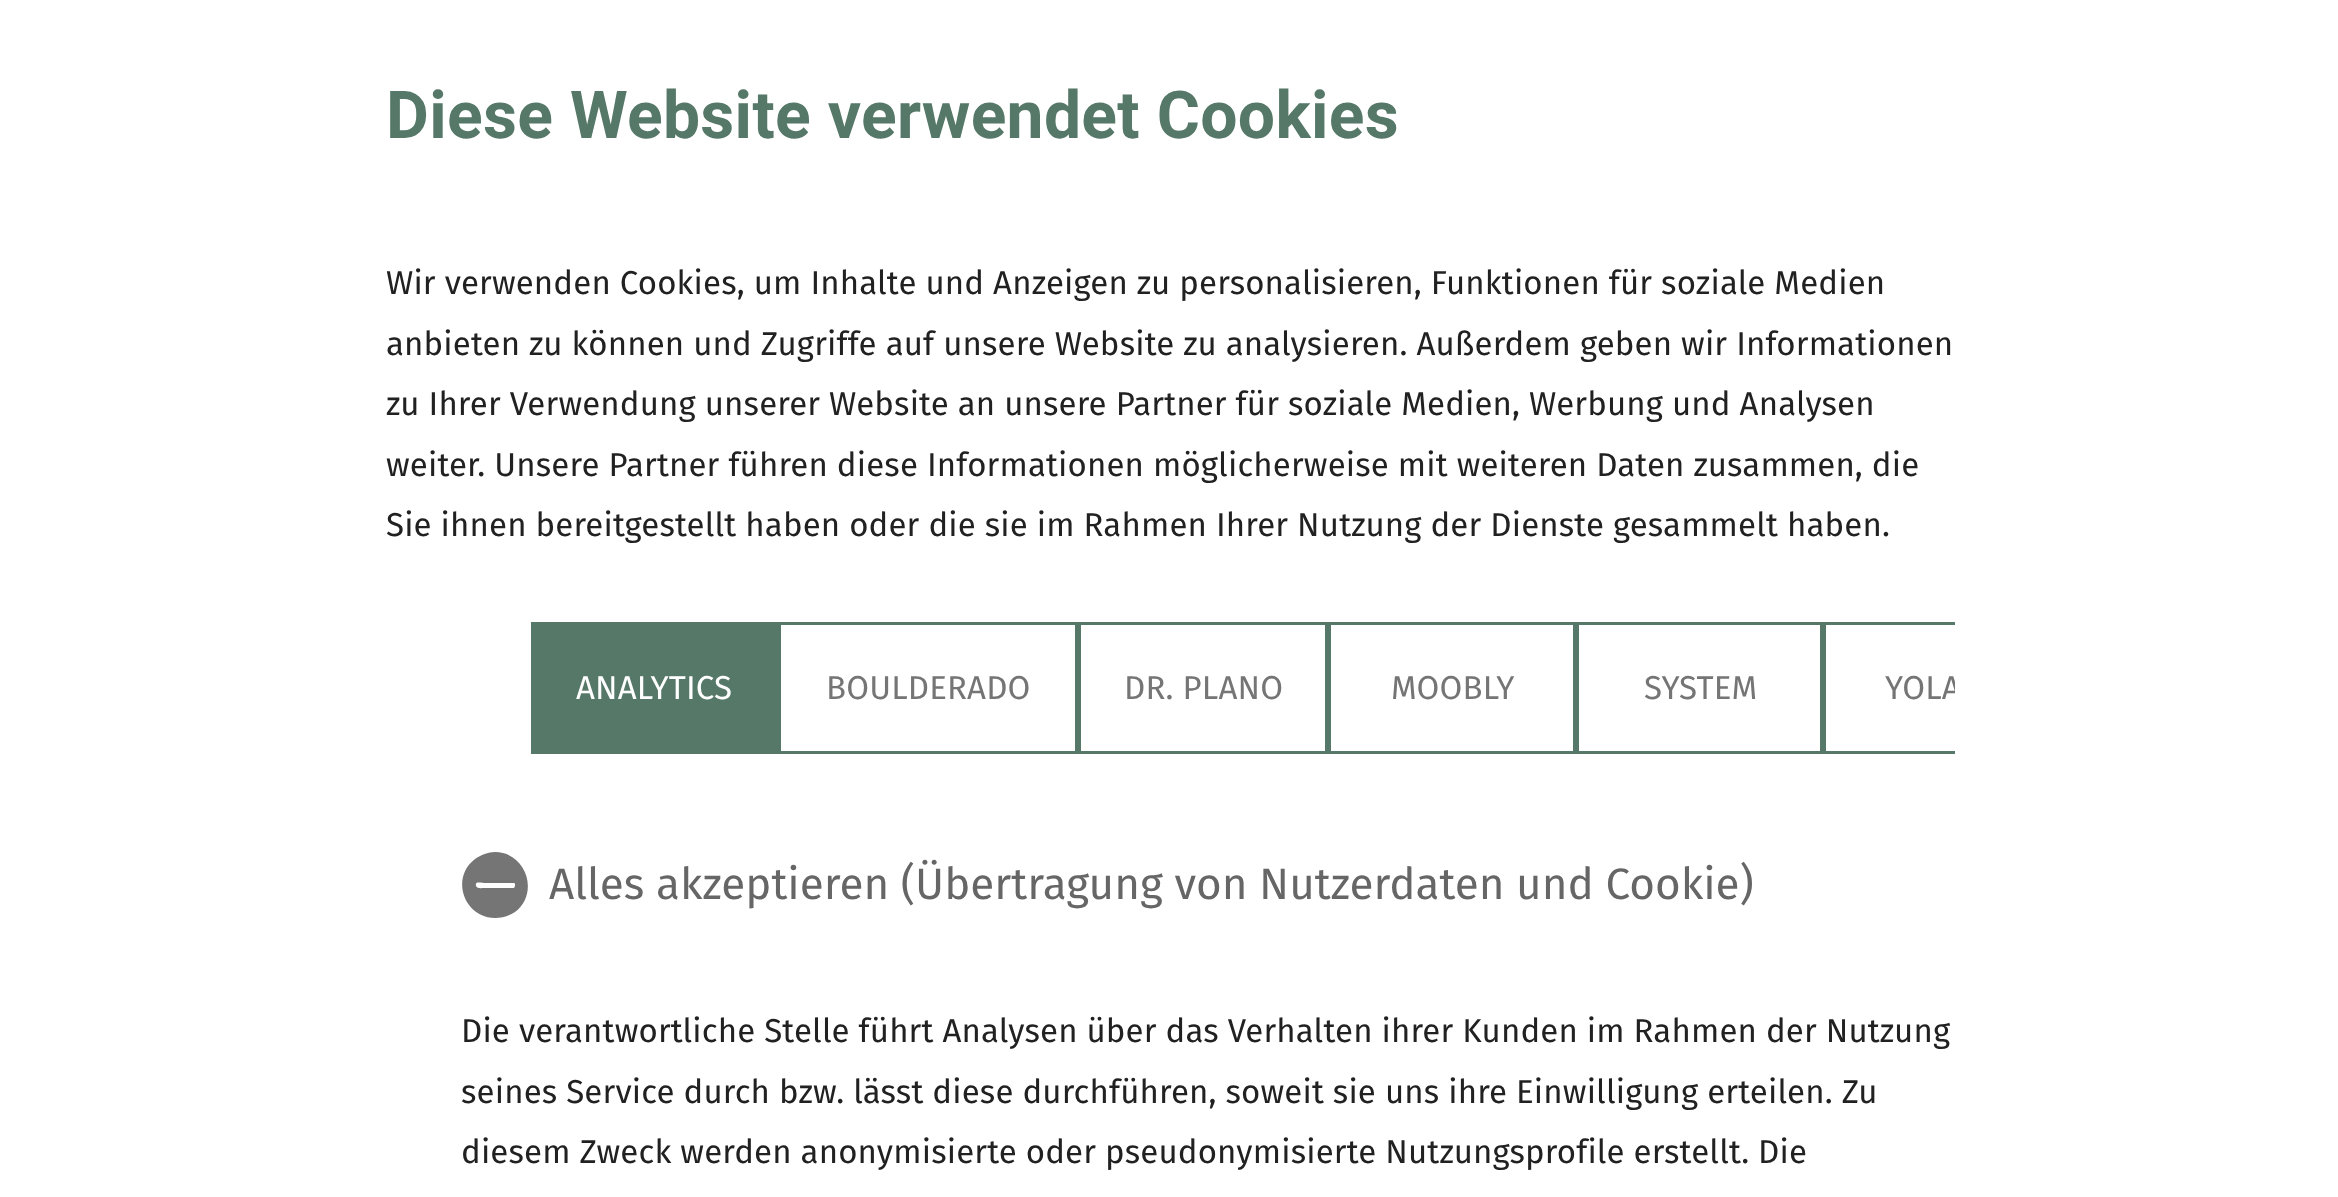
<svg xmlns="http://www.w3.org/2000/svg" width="2338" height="1197">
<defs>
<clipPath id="clip1"><rect x="531" y="622" width="1424" height="132"/></clipPath>
</defs>
<rect width="100%" height="100%" fill="#fff"/>
<text x="386" y="138" style="font-family:Roboto;font-size:66px;font-weight:bold;letter-spacing:0.3px;fill:#567868">Diese Website verwendet Cookies</text>
<text x="386" y="294" style="font-family:Fira Sans;font-size:33px;letter-spacing:0.15px;fill:#212121">Wir verwenden Cookies, um Inhalte und Anzeigen zu personalisieren, Funktionen für soziale Medien</text>
<text x="386" y="355" style="font-family:Fira Sans;font-size:33px;letter-spacing:0.15px;fill:#212121">anbieten zu können und Zugriffe auf unsere Website zu analysieren. Außerdem geben wir Informationen</text>
<text x="386" y="415" style="font-family:Fira Sans;font-size:33px;letter-spacing:0.15px;fill:#212121">zu Ihrer Verwendung unserer Website an unsere Partner für soziale Medien, Werbung und Analysen</text>
<text x="386" y="476" style="font-family:Fira Sans;font-size:33px;letter-spacing:0.15px;fill:#212121">weiter. Unsere Partner führen diese Informationen möglicherweise mit weiteren Daten zusammen, die</text>
<text x="386" y="536" style="font-family:Fira Sans;font-size:33px;letter-spacing:0.15px;fill:#212121">Sie ihnen bereitgestellt haben oder die sie im Rahmen Ihrer Nutzung der Dienste gesammelt haben.</text>
<rect x="531" y="622" width="247" height="132" fill="#567868"/>
<text x="576" y="699" style="font-family:Fira Sans;font-size:33px;letter-spacing:0.15px;fill:#fff">ANALYTICS</text>
<rect x="779.5" y="623.5" width="297" height="129" fill="none" stroke="#567868" stroke-width="3"/>
<text x="826" y="699" style="font-family:Fira Sans;font-size:33px;letter-spacing:0.15px;fill:#757575">BOULDERADO</text>
<rect x="1079.5" y="623.5" width="247" height="129" fill="none" stroke="#567868" stroke-width="3"/>
<text x="1124" y="699" style="font-family:Fira Sans;font-size:33px;letter-spacing:0.15px;fill:#757575">DR. PLANO</text>
<rect x="1329.5" y="623.5" width="245" height="129" fill="none" stroke="#567868" stroke-width="3"/>
<text x="1391" y="699" style="font-family:Fira Sans;font-size:33px;letter-spacing:0.15px;fill:#757575">MOOBLY</text>
<rect x="1577.5" y="623.5" width="244" height="129" fill="none" stroke="#567868" stroke-width="3"/>
<text x="1644" y="699" style="font-family:Fira Sans;font-size:33px;letter-spacing:0.15px;fill:#757575">SYSTEM</text>
<g clip-path="url(#clip1)">
<rect x="1824.5" y="623.5" width="245" height="129" fill="none" stroke="#567868" stroke-width="3"/>
<text x="1885" y="699" style="font-family:Fira Sans;font-size:33px;letter-spacing:0.15px;fill:#757575">YOLA</text>
</g>
<path d="M495 852c31 0 45 41 20 60c-6 4-13 6-20 6c-31 0-45-40-20-59c6-4 13-7 20-7zm19 31h-30c-5 0-9-2-8 3c1 3 6 2 8 2h24c6 0 7 1 7-4c0-1-1-1-1-1z" fill="#757575"/>
<text x="549" y="899" style="font-family:Fira Sans;font-size:44px;fill:#666">Alles akzeptieren (Übertragung von Nutzerdaten und Cookie)</text>
<text x="461" y="1042" style="font-family:Fira Sans;font-size:33px;letter-spacing:0.15px;fill:#212121">Die verantwortliche Stelle führt Analysen über das Verhalten ihrer Kunden im Rahmen der Nutzung</text>
<text x="461" y="1103" style="font-family:Fira Sans;font-size:33px;letter-spacing:0.15px;fill:#212121">seines Service durch bzw. lässt diese durchführen, soweit sie uns ihre Einwilligung erteilen. Zu</text>
<text x="461" y="1163" style="font-family:Fira Sans;font-size:33px;letter-spacing:0.15px;fill:#212121">diesem Zweck werden anonymisierte oder pseudonymisierte Nutzungsprofile erstellt. Die</text>
</svg>
